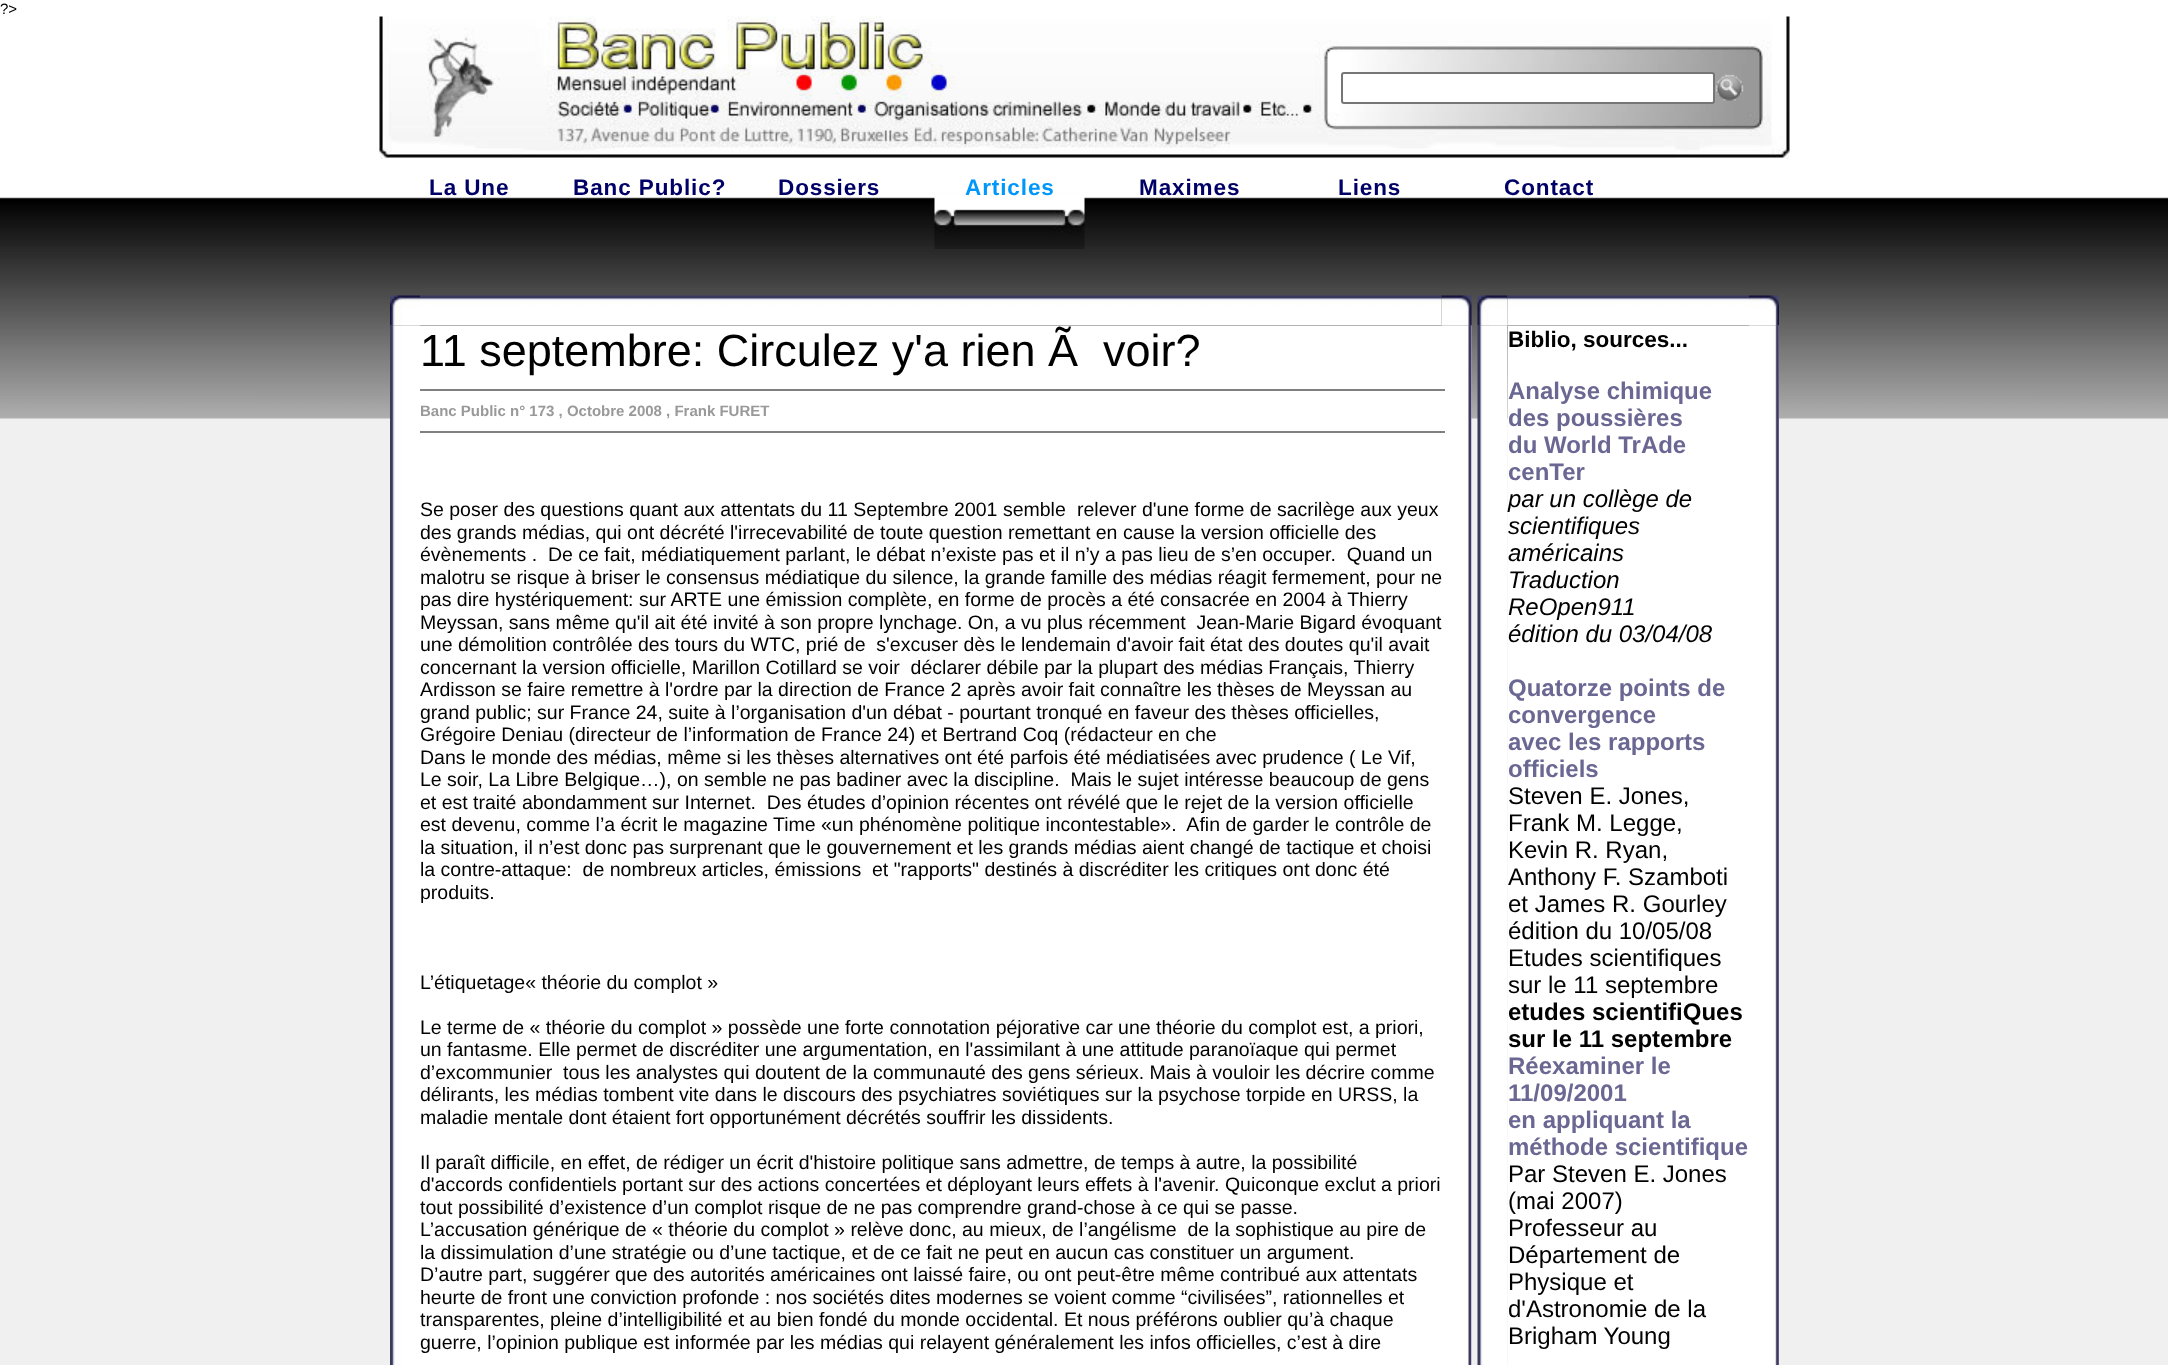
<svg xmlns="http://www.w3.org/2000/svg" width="2168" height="1365">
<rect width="100%" height="100%" fill="#f0f0f0"/>
<image x="0" y="0" width="2168" height="419" href="media/1.png"/>
<text x="0" y="14" style="font-family:Liberation Sans;font-size:15px;fill:#000">?&gt;</text>
<image x="379" y="16" width="1411" height="143" href="media/2.png"/>
<rect x="1342" y="73" width="372" height="30" rx="2" fill="#fff" stroke="#767676" stroke-width="2"/>
<image x="1715" y="74" width="29" height="27" href="media/3.png"/>
<text x="429" y="195" style="font-family:Liberation Sans;font-size:22.5px;font-weight:bold;letter-spacing:0.9px;fill:#006">La Une</text>
<text x="573" y="195" style="font-family:Liberation Sans;font-size:22.5px;font-weight:bold;letter-spacing:0.9px;fill:#006">Banc Public?</text>
<text x="778" y="195" style="font-family:Liberation Sans;font-size:22.5px;font-weight:bold;letter-spacing:0.9px;fill:#006">Dossiers</text>
<image x="934" y="197" width="151" height="52" href="media/4.png"/>
<text x="965" y="195" style="font-family:Liberation Sans;font-size:22.5px;font-weight:bold;letter-spacing:0.9px;fill:#0097fb">Articles</text>
<text x="1139" y="195" style="font-family:Liberation Sans;font-size:22.5px;font-weight:bold;letter-spacing:0.9px;fill:#006">Maximes</text>
<text x="1338" y="195" style="font-family:Liberation Sans;font-size:22.5px;font-weight:bold;letter-spacing:0.9px;fill:#006">Liens</text>
<text x="1504" y="195" style="font-family:Liberation Sans;font-size:22.5px;font-weight:bold;letter-spacing:0.9px;fill:#006">Contact</text>
<image x="390" y="295" width="30" height="31" href="media/5.png"/>
<image x="420" y="295" width="1022" height="31" href="media/6.png"/>
<image x="1441" y="295" width="31" height="31" href="media/7.png"/>
<image x="390" y="325" width="30" height="1040" href="media/8.png"/>
<rect x="420" y="326" width="1022" height="1039" fill="#fff"/>
<text x="420" y="366" style="font-family:Liberation Sans;font-size:45px;fill:#000" xml:space="preserve">11 septembre: Circulez y'a rien Ã  voir?</text>
<image x="1441" y="325" width="31" height="1040" href="media/9.png"/>
<rect x="420" y="389" width="1025" height="2" fill="#808080"/>
<text x="420" y="416" style="font-family:Liberation Sans;font-size:15px;font-weight:bold;fill:#999">Banc Public n° 173 , Octobre 2008 , Frank FURET</text>
<rect x="420" y="431" width="1025" height="2" fill="#808080"/>
<text x="420" y="516" style="font-family:Liberation Sans;font-size:19.5px;fill:#000">Se poser des questions quant aux attentats du 11 Septembre 2001 semble</text>
<text x="1077" y="516" style="font-family:Liberation Sans;font-size:19.5px;fill:#000">relever d'une forme de sacrilège aux yeux</text>
<text x="420" y="539" style="font-family:Liberation Sans;font-size:19.5px;fill:#000">des grands médias, qui ont décrété l'irrecevabilité de toute question remettant en cause la version officielle des</text>
<text x="420" y="561" style="font-family:Liberation Sans;font-size:19.5px;fill:#000" xml:space="preserve">évènements .  De ce fait, médiatiquement parlant, le débat n’existe pas et il n’y a pas lieu de s’en occuper.  Quand un</text>
<text x="420" y="584" style="font-family:Liberation Sans;font-size:19.5px;fill:#000">malotru se risque à briser le consensus médiatique du silence, la grande famille des médias réagit fermement, pour ne</text>
<text x="420" y="606" style="font-family:Liberation Sans;font-size:19.5px;fill:#000">pas dire hystériquement: sur ARTE une émission complète, en forme de procès a été consacrée en 2004 à Thierry</text>
<text x="420" y="629" style="font-family:Liberation Sans;font-size:19.5px;fill:#000" xml:space="preserve">Meyssan, sans même qu'il ait été invité à son propre lynchage. On, a vu plus récemment  Jean-Marie Bigard évoquant</text>
<text x="420" y="651" style="font-family:Liberation Sans;font-size:19.5px;fill:#000" xml:space="preserve">une démolition contrôlée des tours du WTC, prié de  s'excuser dès le lendemain d'avoir fait état des doutes qu'il avait</text>
<text x="420" y="674" style="font-family:Liberation Sans;font-size:19.5px;fill:#000" xml:space="preserve">concernant la version officielle, Marillon Cotillard se voir  déclarer débile par la plupart des médias Français, Thierry</text>
<text x="420" y="696" style="font-family:Liberation Sans;font-size:19.5px;fill:#000">Ardisson se faire remettre à l'ordre par la direction de France 2 après avoir fait connaître les thèses de Meyssan au</text>
<text x="420" y="719" style="font-family:Liberation Sans;font-size:19.5px;fill:#000">grand public; sur France 24, suite à l’organisation d'un débat - pourtant tronqué en faveur des thèses officielles,</text>
<text x="420" y="741" style="font-family:Liberation Sans;font-size:19.5px;fill:#000">Grégoire Deniau (directeur de l’information de France 24) et Bertrand Coq (rédacteur en che</text>
<text x="420" y="764" style="font-family:Liberation Sans;font-size:19.5px;fill:#000">Dans le monde des médias, même si les thèses alternatives ont été parfois été médiatisées avec prudence ( Le Vif,</text>
<text x="420" y="786" style="font-family:Liberation Sans;font-size:19.5px;fill:#000" xml:space="preserve">Le soir, La Libre Belgique…), on semble ne pas badiner avec la discipline.  Mais le sujet intéresse beaucoup de gens</text>
<text x="420" y="809" style="font-family:Liberation Sans;font-size:19.5px;fill:#000" xml:space="preserve">et est traité abondamment sur Internet.  Des études d’opinion récentes ont révélé que le rejet de la version officielle</text>
<text x="420" y="831" style="font-family:Liberation Sans;font-size:19.5px;fill:#000" xml:space="preserve">est devenu, comme l’a écrit le magazine Time «un phénomène politique incontestable».  Afin de garder le contrôle de</text>
<text x="420" y="854" style="font-family:Liberation Sans;font-size:19.5px;fill:#000">la situation, il n’est donc pas surprenant que le gouvernement et les grands médias aient changé de tactique et choisi</text>
<text x="420" y="876" style="font-family:Liberation Sans;font-size:19.5px;fill:#000" xml:space="preserve">la contre-attaque:  de nombreux articles, émissions  et "rapports" destinés à discréditer les critiques ont donc été</text>
<text x="420" y="899" style="font-family:Liberation Sans;font-size:19.5px;fill:#000">produits.</text>
<text x="420" y="989" style="font-family:Liberation Sans;font-size:19.5px;fill:#000">L’étiquetage« théorie du complot »</text>
<text x="420" y="1034" style="font-family:Liberation Sans;font-size:19.5px;fill:#000">Le terme de « théorie du complot » possède une forte connotation péjorative car une théorie du complot est, a priori,</text>
<text x="420" y="1056" style="font-family:Liberation Sans;font-size:19.5px;fill:#000">un fantasme. Elle permet de discréditer une argumentation, en l'assimilant à une attitude paranoïaque qui permet</text>
<text x="420" y="1079" style="font-family:Liberation Sans;font-size:19.5px;fill:#000" xml:space="preserve">d’excommunier  tous les analystes qui doutent de la communauté des gens sérieux. Mais à vouloir les décrire comme</text>
<text x="420" y="1101" style="font-family:Liberation Sans;font-size:19.5px;fill:#000">délirants, les médias tombent vite dans le discours des psychiatres soviétiques sur la psychose torpide en URSS, la</text>
<text x="420" y="1124" style="font-family:Liberation Sans;font-size:19.5px;fill:#000">maladie mentale dont étaient fort opportunément décrétés souffrir les dissidents.</text>
<text x="420" y="1169" style="font-family:Liberation Sans;font-size:19.5px;fill:#000">Il paraît difficile, en effet, de rédiger un écrit d'histoire politique sans admettre, de temps à autre, la possibilité</text>
<text x="420" y="1191" style="font-family:Liberation Sans;font-size:19.5px;fill:#000">d'accords confidentiels portant sur des actions concertées et déployant leurs effets à l'avenir. Quiconque exclut a priori</text>
<text x="420" y="1214" style="font-family:Liberation Sans;font-size:19.5px;fill:#000">tout possibilité d’existence d’un complot risque de ne pas comprendre grand-chose à ce qui se passe.</text>
<text x="420" y="1236" style="font-family:Liberation Sans;font-size:19.5px;fill:#000" xml:space="preserve">L’accusation générique de « théorie du complot » relève donc, au mieux, de l’angélisme  de la sophistique au pire de</text>
<text x="420" y="1259" style="font-family:Liberation Sans;font-size:19.5px;fill:#000">la dissimulation d’une stratégie ou d’une tactique, et de ce fait ne peut en aucun cas constituer un argument.</text>
<text x="420" y="1281" style="font-family:Liberation Sans;font-size:19.5px;fill:#000">D’autre part, suggérer que des autorités américaines ont laissé faire, ou ont peut-être même contribué aux attentats</text>
<text x="420" y="1304" style="font-family:Liberation Sans;font-size:19.5px;fill:#000">heurte de front une conviction profonde : nos sociétés dites modernes se voient comme “civilisées”, rationnelles et</text>
<text x="420" y="1326" style="font-family:Liberation Sans;font-size:19.5px;fill:#000">transparentes, pleine d’intelligibilité et au bien fondé du monde occidental. Et nous préférons oublier qu’à chaque</text>
<text x="420" y="1349" style="font-family:Liberation Sans;font-size:19.5px;fill:#000">guerre, l’opinion publique est informée par les médias qui relayent généralement les infos officielles, c’est à dire</text>
<image x="1477" y="295" width="31" height="31" href="media/10.png"/>
<image x="1507" y="295" width="242" height="31" href="media/11.png"/>
<image x="1749" y="295" width="30" height="31" href="media/12.png"/>
<image x="1477" y="325" width="31" height="1040" href="media/13.png"/>
<rect x="1508" y="326" width="241" height="1039" fill="#fff"/>
<text x="1508" y="347" style="font-family:Liberation Sans;font-size:22.5px;font-weight:bold;fill:#000">Biblio, sources...</text>
<text x="1508" y="399" style="font-family:Liberation Sans;font-size:24px;font-weight:bold;fill:#6a6893">Analyse chimique</text>
<text x="1508" y="426" style="font-family:Liberation Sans;font-size:24px;font-weight:bold;fill:#6a6893">des poussières</text>
<text x="1508" y="453" style="font-family:Liberation Sans;font-size:24px;font-weight:bold;fill:#6a6893">du World TrAde</text>
<text x="1508" y="480" style="font-family:Liberation Sans;font-size:24px;font-weight:bold;fill:#6a6893">cenTer</text>
<text x="1508" y="507" style="font-family:Liberation Sans;font-size:24px;font-style:italic;fill:#000">par un collège de</text>
<text x="1508" y="534" style="font-family:Liberation Sans;font-size:24px;font-style:italic;fill:#000">scientifiques</text>
<text x="1508" y="561" style="font-family:Liberation Sans;font-size:24px;font-style:italic;fill:#000">américains</text>
<text x="1508" y="588" style="font-family:Liberation Sans;font-size:24px;font-style:italic;fill:#000">Traduction</text>
<text x="1508" y="615" style="font-family:Liberation Sans;font-size:24px;font-style:italic;fill:#000">ReOpen911</text>
<text x="1508" y="642" style="font-family:Liberation Sans;font-size:24px;font-style:italic;fill:#000">édition du 03/04/08</text>
<text x="1508" y="696" style="font-family:Liberation Sans;font-size:24px;font-weight:bold;fill:#6a6893">Quatorze points de</text>
<text x="1508" y="723" style="font-family:Liberation Sans;font-size:24px;font-weight:bold;fill:#6a6893">convergence</text>
<text x="1508" y="750" style="font-family:Liberation Sans;font-size:24px;font-weight:bold;fill:#6a6893">avec les rapports</text>
<text x="1508" y="777" style="font-family:Liberation Sans;font-size:24px;font-weight:bold;fill:#6a6893">officiels</text>
<text x="1508" y="804" style="font-family:Liberation Sans;font-size:24px;fill:#000">Steven E. Jones,</text>
<text x="1508" y="831" style="font-family:Liberation Sans;font-size:24px;fill:#000">Frank M. Legge,</text>
<text x="1508" y="858" style="font-family:Liberation Sans;font-size:24px;fill:#000">Kevin R. Ryan,</text>
<text x="1508" y="885" style="font-family:Liberation Sans;font-size:24px;fill:#000">Anthony F. Szamboti</text>
<text x="1508" y="912" style="font-family:Liberation Sans;font-size:24px;fill:#000">et James R. Gourley</text>
<text x="1508" y="939" style="font-family:Liberation Sans;font-size:24px;fill:#000">édition du 10/05/08</text>
<text x="1508" y="966" style="font-family:Liberation Sans;font-size:24px;fill:#000">Etudes scientifiques</text>
<text x="1508" y="993" style="font-family:Liberation Sans;font-size:24px;fill:#000">sur le 11 septembre</text>
<text x="1508" y="1020" style="font-family:Liberation Sans;font-size:24px;font-weight:bold;fill:#000">etudes scientifiQues</text>
<text x="1508" y="1047" style="font-family:Liberation Sans;font-size:24px;font-weight:bold;fill:#000">sur le 11 septembre</text>
<text x="1508" y="1074" style="font-family:Liberation Sans;font-size:24px;font-weight:bold;fill:#6a6893">Réexaminer le</text>
<text x="1508" y="1101" style="font-family:Liberation Sans;font-size:24px;font-weight:bold;fill:#6a6893">11/09/2001</text>
<text x="1508" y="1128" style="font-family:Liberation Sans;font-size:24px;font-weight:bold;fill:#6a6893">en appliquant la</text>
<text x="1508" y="1155" style="font-family:Liberation Sans;font-size:24px;font-weight:bold;fill:#6a6893">méthode scientifique</text>
<text x="1508" y="1182" style="font-family:Liberation Sans;font-size:24px;fill:#000">Par Steven E. Jones</text>
<text x="1508" y="1209" style="font-family:Liberation Sans;font-size:24px;fill:#000">(mai 2007)</text>
<text x="1508" y="1236" style="font-family:Liberation Sans;font-size:24px;fill:#000">Professeur au</text>
<text x="1508" y="1263" style="font-family:Liberation Sans;font-size:24px;fill:#000">Département de</text>
<text x="1508" y="1290" style="font-family:Liberation Sans;font-size:24px;fill:#000">Physique et</text>
<text x="1508" y="1317" style="font-family:Liberation Sans;font-size:24px;fill:#000">d'Astronomie de la</text>
<text x="1508" y="1344" style="font-family:Liberation Sans;font-size:24px;fill:#000">Brigham Young</text>
<image x="1749" y="325" width="30" height="1040" href="media/14.png"/>
</svg>
